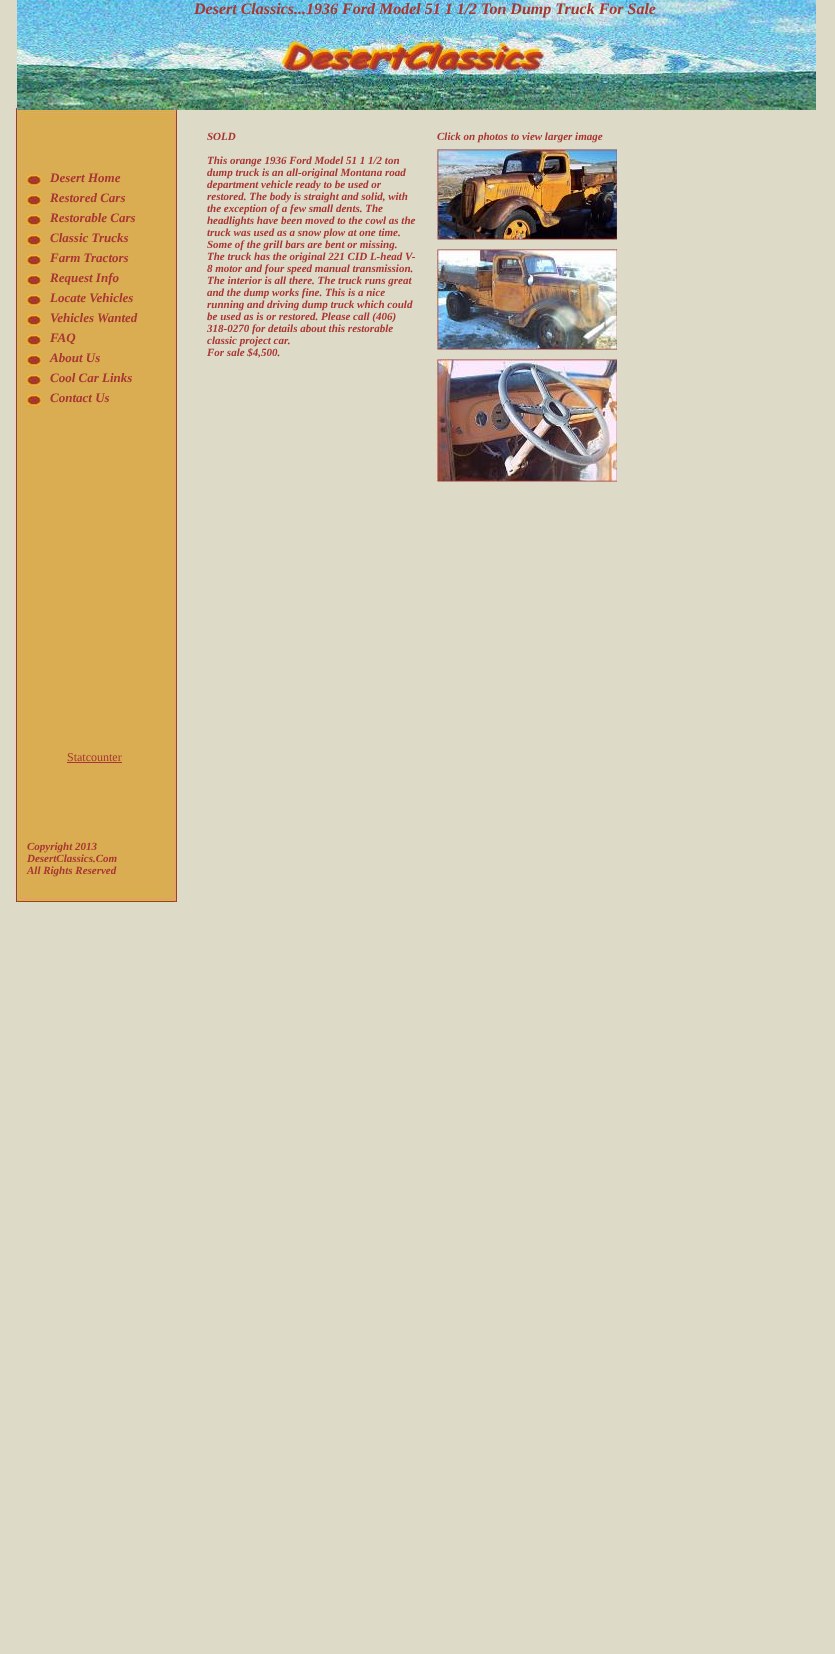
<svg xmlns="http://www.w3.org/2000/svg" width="835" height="1654">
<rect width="100%" height="100%" fill="#dedac8"/>
<image x="15" y="106" width="162" height="796" href="media/5.png"/>
<image x="17" y="0" width="799" height="110" href="media/1.png"/>
<text x="194" y="14" style="font-family:Liberation Serif;font-size:16px;font-weight:bold;font-style:italic;fill:#a83632">Desert Classics...1936 Ford Model 51 1 1/2 Ton Dump Truck For Sale</text>
<image x="278" y="31" width="263" height="43" href="media/2.png"/>
<image x="280" y="34" width="263" height="42" href="media/3.png"/>
<image x="282" y="36" width="263" height="43" href="media/4.png"/>
<image x="25" y="175" width="17" height="12" href="media/6.png"/>
<image x="25" y="195" width="17" height="12" href="media/7.png"/>
<image x="25" y="215" width="17" height="12" href="media/7.png"/>
<image x="25" y="235" width="17" height="12" href="media/7.png"/>
<image x="25" y="255" width="17" height="12" href="media/6.png"/>
<image x="25" y="275" width="17" height="12" href="media/6.png"/>
<image x="25" y="295" width="17" height="12" href="media/8.png"/>
<image x="25" y="315" width="17" height="12" href="media/7.png"/>
<image x="25" y="335" width="17" height="12" href="media/7.png"/>
<image x="25" y="355" width="17" height="12" href="media/7.png"/>
<image x="25" y="375" width="17" height="12" href="media/8.png"/>
<image x="25" y="395" width="17" height="12" href="media/7.png"/>
<text x="207" y="140" style="font-family:Liberation Serif;font-size:11px;font-weight:bold;font-style:italic;fill:#a83632">SOLD</text>
<text x="207" y="164" style="font-family:Liberation Serif;font-size:11px;font-weight:bold;font-style:italic;fill:#a83632">This orange 1936 Ford Model 51 1 1/2 ton</text>
<text x="207" y="176" style="font-family:Liberation Serif;font-size:11px;font-weight:bold;font-style:italic;fill:#a83632">dump truck is an all-original Montana road</text>
<text x="207" y="188" style="font-family:Liberation Serif;font-size:11px;font-weight:bold;font-style:italic;fill:#a83632">department vehicle ready to be used or</text>
<text x="207" y="200" style="font-family:Liberation Serif;font-size:11px;font-weight:bold;font-style:italic;fill:#a83632">restored. The body is straight and solid, with</text>
<text x="207" y="212" style="font-family:Liberation Serif;font-size:11px;font-weight:bold;font-style:italic;fill:#a83632">the exception of a few small dents. The</text>
<text x="207" y="224" style="font-family:Liberation Serif;font-size:11px;font-weight:bold;font-style:italic;fill:#a83632">headlights have been moved to the cowl as the</text>
<text x="207" y="236" style="font-family:Liberation Serif;font-size:11px;font-weight:bold;font-style:italic;fill:#a83632">truck was used as a snow plow at one time.</text>
<text x="207" y="248" style="font-family:Liberation Serif;font-size:11px;font-weight:bold;font-style:italic;fill:#a83632">Some of the grill bars are bent or missing.</text>
<text x="207" y="260" style="font-family:Liberation Serif;font-size:11px;font-weight:bold;font-style:italic;fill:#a83632">The truck has the original 221 CID L-head V-</text>
<text x="207" y="272" style="font-family:Liberation Serif;font-size:11px;font-weight:bold;font-style:italic;fill:#a83632">8 motor and four speed manual transmission.</text>
<text x="207" y="284" style="font-family:Liberation Serif;font-size:11px;font-weight:bold;font-style:italic;fill:#a83632">The interior is all there. The truck runs great</text>
<text x="207" y="296" style="font-family:Liberation Serif;font-size:11px;font-weight:bold;font-style:italic;fill:#a83632">and the dump works fine. This is a nice</text>
<text x="207" y="308" style="font-family:Liberation Serif;font-size:11px;font-weight:bold;font-style:italic;fill:#a83632">running and driving dump truck which could</text>
<text x="207" y="320" style="font-family:Liberation Serif;font-size:11px;font-weight:bold;font-style:italic;fill:#a83632">be used as is or restored. Please call (406)</text>
<text x="207" y="332" style="font-family:Liberation Serif;font-size:11px;font-weight:bold;font-style:italic;fill:#a83632">318-0270 for details about this restorable</text>
<text x="207" y="344" style="font-family:Liberation Serif;font-size:11px;font-weight:bold;font-style:italic;fill:#a83632">classic project car.</text>
<text x="207" y="356" style="font-family:Liberation Serif;font-size:11px;font-weight:bold;font-style:italic;fill:#a83632">For sale $4,500.</text>
<text x="437" y="140" style="font-family:Liberation Serif;font-size:11px;font-weight:bold;font-style:italic;fill:#a83632">Click on photos to view larger image</text>
<text x="50" y="182" style="font-family:Liberation Serif;font-size:13px;font-weight:bold;font-style:italic;fill:#a83632">Desert Home</text>
<image x="436" y="149" width="181" height="91" href="media/9.png"/>
<text x="50" y="202" style="font-family:Liberation Serif;font-size:13px;font-weight:bold;font-style:italic;fill:#a83632">Restored Cars</text>
<text x="50" y="222" style="font-family:Liberation Serif;font-size:13px;font-weight:bold;font-style:italic;fill:#a83632">Restorable Cars</text>
<text x="50" y="242" style="font-family:Liberation Serif;font-size:13px;font-weight:bold;font-style:italic;fill:#a83632">Classic Trucks</text>
<text x="50" y="262" style="font-family:Liberation Serif;font-size:13px;font-weight:bold;font-style:italic;fill:#a83632">Farm Tractors</text>
<image x="436" y="249" width="181" height="101" href="media/10.png"/>
<text x="50" y="282" style="font-family:Liberation Serif;font-size:13px;font-weight:bold;font-style:italic;fill:#a83632">Request Info</text>
<text x="50" y="302" style="font-family:Liberation Serif;font-size:13px;font-weight:bold;font-style:italic;fill:#a83632">Locate Vehicles</text>
<text x="50" y="322" style="font-family:Liberation Serif;font-size:13px;font-weight:bold;font-style:italic;fill:#a83632">Vehicles Wanted</text>
<text x="50" y="342" style="font-family:Liberation Serif;font-size:13px;font-weight:bold;font-style:italic;fill:#a83632">FAQ</text>
<text x="50" y="362" style="font-family:Liberation Serif;font-size:13px;font-weight:bold;font-style:italic;fill:#a83632">About Us</text>
<text x="50" y="382" style="font-family:Liberation Serif;font-size:13px;font-weight:bold;font-style:italic;fill:#a83632">Cool Car Links</text>
<image x="436" y="359" width="181" height="123" href="media/11.png"/>
<text x="50" y="402" style="font-family:Liberation Serif;font-size:13px;font-weight:bold;font-style:italic;fill:#a83632">Contact Us</text>
<text x="67" y="761" style="font-family:Liberation Serif;font-size:12px;fill:#a83632">Statcounter</text>
<rect x="67" y="762" width="55" height="1" fill="#a83632"/>
<text x="27" y="850" style="font-family:Liberation Serif;font-size:11px;font-weight:bold;font-style:italic;fill:#a83632">Copyright 2013</text>
<text x="27" y="862" style="font-family:Liberation Serif;font-size:11px;font-weight:bold;font-style:italic;fill:#a83632">DesertClassics.Com</text>
<text x="27" y="874" style="font-family:Liberation Serif;font-size:11px;font-weight:bold;font-style:italic;fill:#a83632">All Rights Reserved</text>
</svg>
